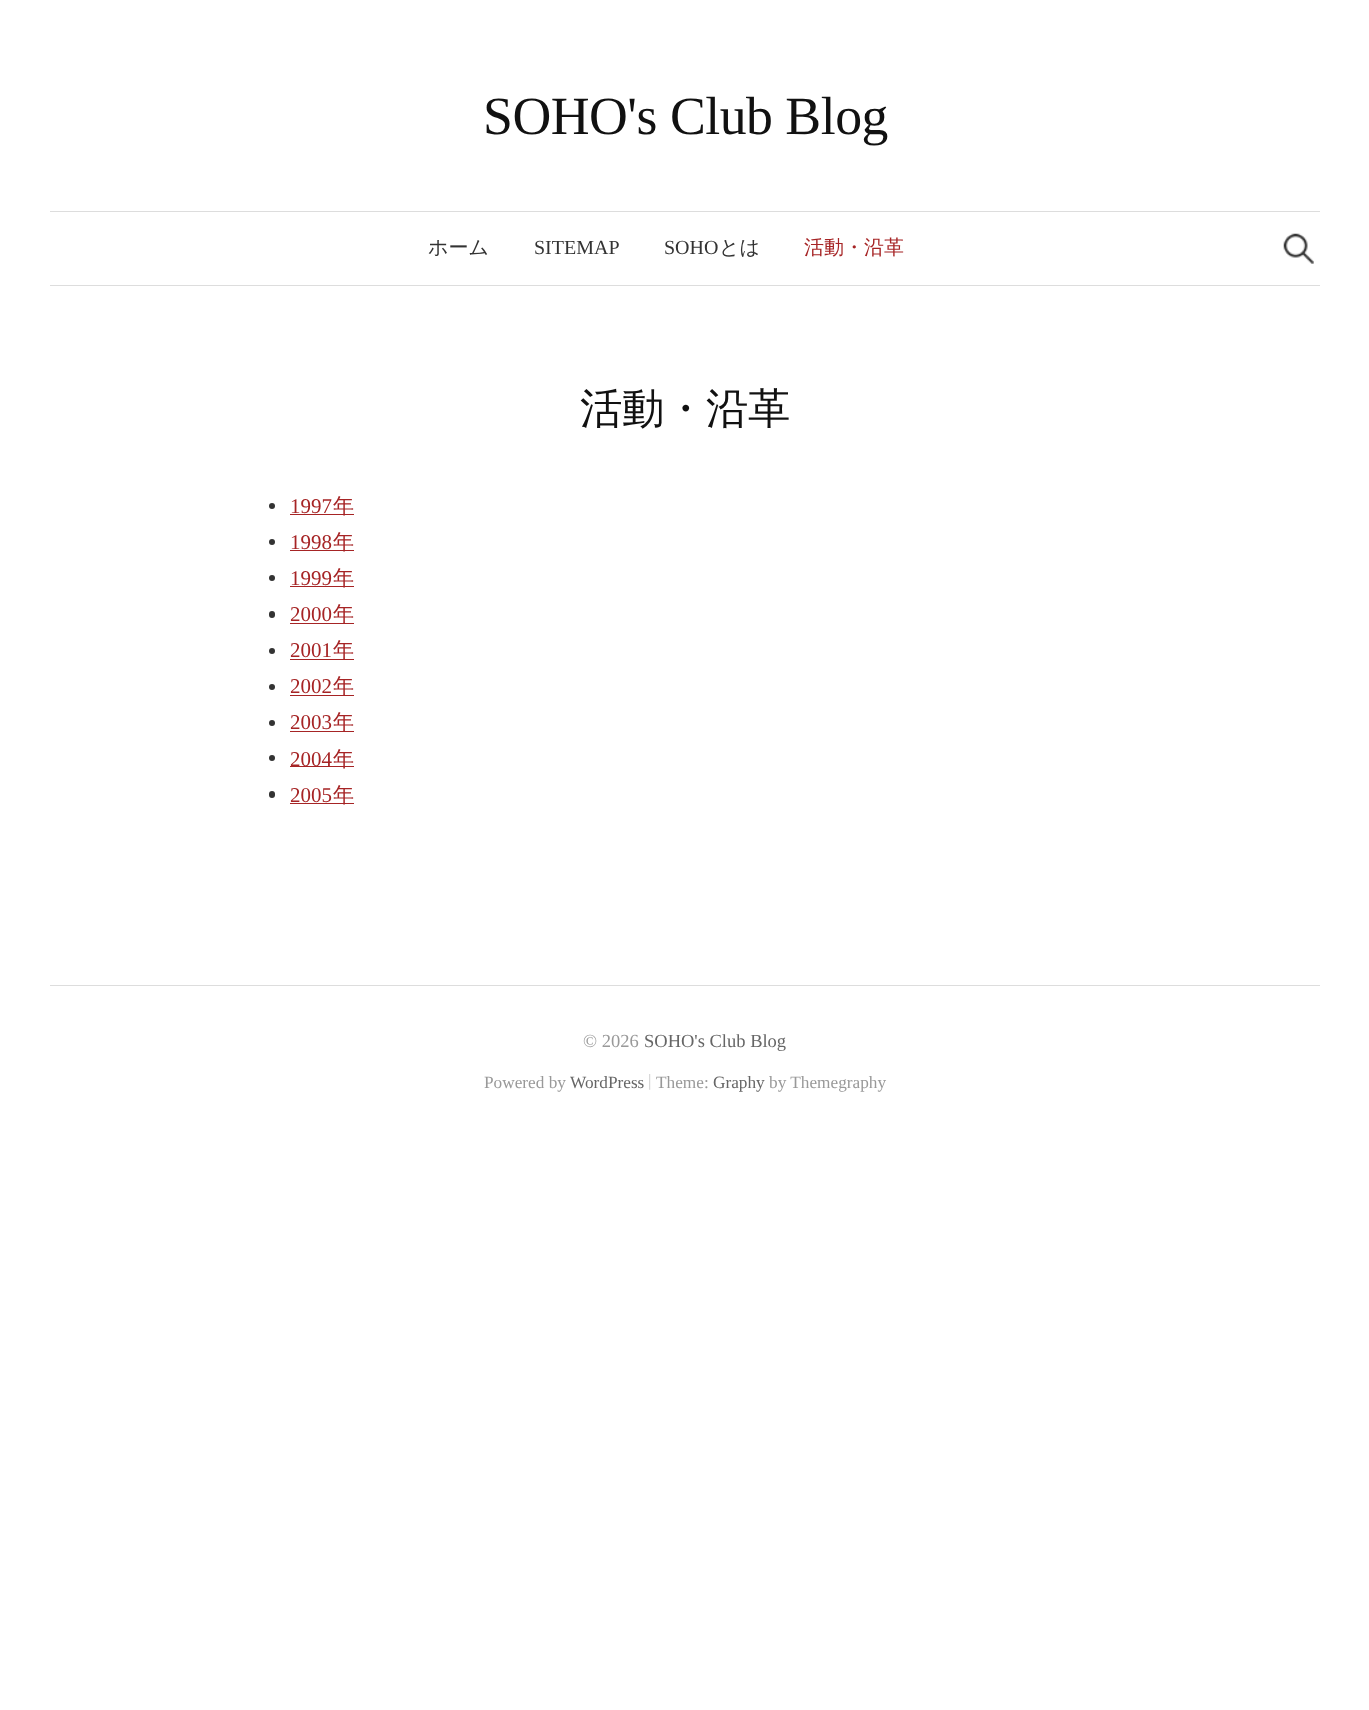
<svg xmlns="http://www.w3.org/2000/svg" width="1369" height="1710">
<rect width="100%" height="100%" fill="#fff"/>
<text x="483" y="134" style="font-family:Liberation Serif;font-size:53.75px;letter-spacing:-0.5px;fill:#111">SOHO's Club Blog</text>
<rect x="50" y="211" width="1270" height="1" fill="#ddd"/>
<rect x="50" y="285" width="1270" height="1" fill="#ddd"/>
<text x="428" y="254" style="font-family:WenQuanYi Zen Hei;font-size:20px;font-weight:500;fill:#333">ホーム</text>
<text x="534" y="254" style="font-family:Liberation Serif;font-size:20px;fill:#333">SITEMAP</text>
<text x="664" y="254" style="font-family:Liberation Serif;font-size:20px;fill:#333">SOHO</text>
<text x="719" y="254" style="font-family:WenQuanYi Zen Hei;font-size:20px;font-weight:500;fill:#333">とは</text>
<text x="804" y="254" style="font-family:WenQuanYi Zen Hei;font-size:20px;font-weight:500;fill:#a62425">活動・沿革</text>
<image x="1283" y="233" width="31" height="31" href="media/1.png"/>
<text x="580" y="423" style="font-family:WenQuanYi Zen Hei;font-size:42.5px;font-weight:500;letter-spacing:-0.5px;fill:#111">活動・沿革</text>
<circle cx="272" cy="506" r="3" fill="#333"/>
<text x="290" y="513" style="font-family:Liberation Serif;font-size:21px;fill:#a62425">1997</text>
<rect x="290" y="514" width="64" height="1" fill="#a62425"/>
<text x="333" y="513" style="font-family:WenQuanYi Zen Hei;font-size:21px;font-weight:500;fill:#a62425">年</text>
<circle cx="272" cy="542" r="3" fill="#333"/>
<text x="290" y="549" style="font-family:Liberation Serif;font-size:21px;fill:#a62425">1998</text>
<rect x="290" y="550" width="64" height="1" fill="#a62425"/>
<text x="333" y="549" style="font-family:WenQuanYi Zen Hei;font-size:21px;font-weight:500;fill:#a62425">年</text>
<circle cx="272" cy="578" r="3" fill="#333"/>
<text x="290" y="585" style="font-family:Liberation Serif;font-size:21px;fill:#a62425">1999</text>
<rect x="290" y="586" width="64" height="1" fill="#a62425"/>
<text x="333" y="585" style="font-family:WenQuanYi Zen Hei;font-size:21px;font-weight:500;fill:#a62425">年</text>
<rect x="269" y="611" width="6" height="7" rx="3" fill="#333"/>
<text x="290" y="621" style="font-family:Liberation Serif;font-size:21px;fill:#a62425">2000</text>
<rect x="290" y="623" width="64" height="1" fill="#a62425"/>
<text x="333" y="621" style="font-family:WenQuanYi Zen Hei;font-size:21px;font-weight:500;fill:#a62425">年</text>
<circle cx="272" cy="651" r="3" fill="#333"/>
<text x="290" y="657" style="font-family:Liberation Serif;font-size:21px;fill:#a62425">2001</text>
<rect x="290" y="659" width="64" height="1" fill="#a62425"/>
<text x="333" y="657" style="font-family:WenQuanYi Zen Hei;font-size:21px;font-weight:500;fill:#a62425">年</text>
<circle cx="272" cy="687" r="3" fill="#333"/>
<text x="290" y="693" style="font-family:Liberation Serif;font-size:21px;fill:#a62425">2002</text>
<rect x="290" y="695" width="64" height="1" fill="#a62425"/>
<text x="333" y="693" style="font-family:WenQuanYi Zen Hei;font-size:21px;font-weight:500;fill:#a62425">年</text>
<circle cx="272" cy="723" r="3" fill="#333"/>
<text x="290" y="729" style="font-family:Liberation Serif;font-size:21px;fill:#a62425">2003</text>
<rect x="290" y="731" width="64" height="1" fill="#a62425"/>
<text x="333" y="729" style="font-family:WenQuanYi Zen Hei;font-size:21px;font-weight:500;fill:#a62425">年</text>
<circle cx="272" cy="758" r="3" fill="#333"/>
<rect x="290" y="766" width="64" height="1" fill="#a62425"/>
<text x="290" y="766" style="font-family:Liberation Serif;font-size:21px;fill:#a62425">2004</text>
<text x="333" y="766" style="font-family:WenQuanYi Zen Hei;font-size:21px;font-weight:500;fill:#a62425">年</text>
<rect x="269" y="791" width="6" height="7" rx="3" fill="#333"/>
<text x="290" y="802" style="font-family:Liberation Serif;font-size:21px;fill:#a62425">2005</text>
<rect x="290" y="803" width="64" height="1" fill="#a62425"/>
<text x="333" y="802" style="font-family:WenQuanYi Zen Hei;font-size:21px;font-weight:500;fill:#a62425">年</text>
<rect x="50" y="985" width="1270" height="1" fill="#ddd"/>
<text x="583" y="1047" style="font-family:Liberation Serif;font-size:18.5px;fill:#999">© 2026</text>
<text x="644" y="1047" style="font-family:Liberation Serif;font-size:18.5px;fill:#666">SOHO's Club Blog</text>
<text x="484" y="1088" style="font-family:Liberation Serif;font-size:17.25px;fill:#999">Powered by</text>
<text x="570" y="1088" style="font-family:Liberation Serif;font-size:17.25px;fill:#666">WordPress</text>
<text x="648" y="1086" style="font-family:Liberation Serif;font-size:17.25px;fill:#ccc">|</text>
<text x="656" y="1088" style="font-family:Liberation Serif;font-size:17.25px;fill:#999">Theme:</text>
<text x="713" y="1088" style="font-family:Liberation Serif;font-size:17.25px;fill:#666">Graphy</text>
<text x="769" y="1088" style="font-family:Liberation Serif;font-size:17.25px;fill:#999">by Themegraphy</text>
</svg>
